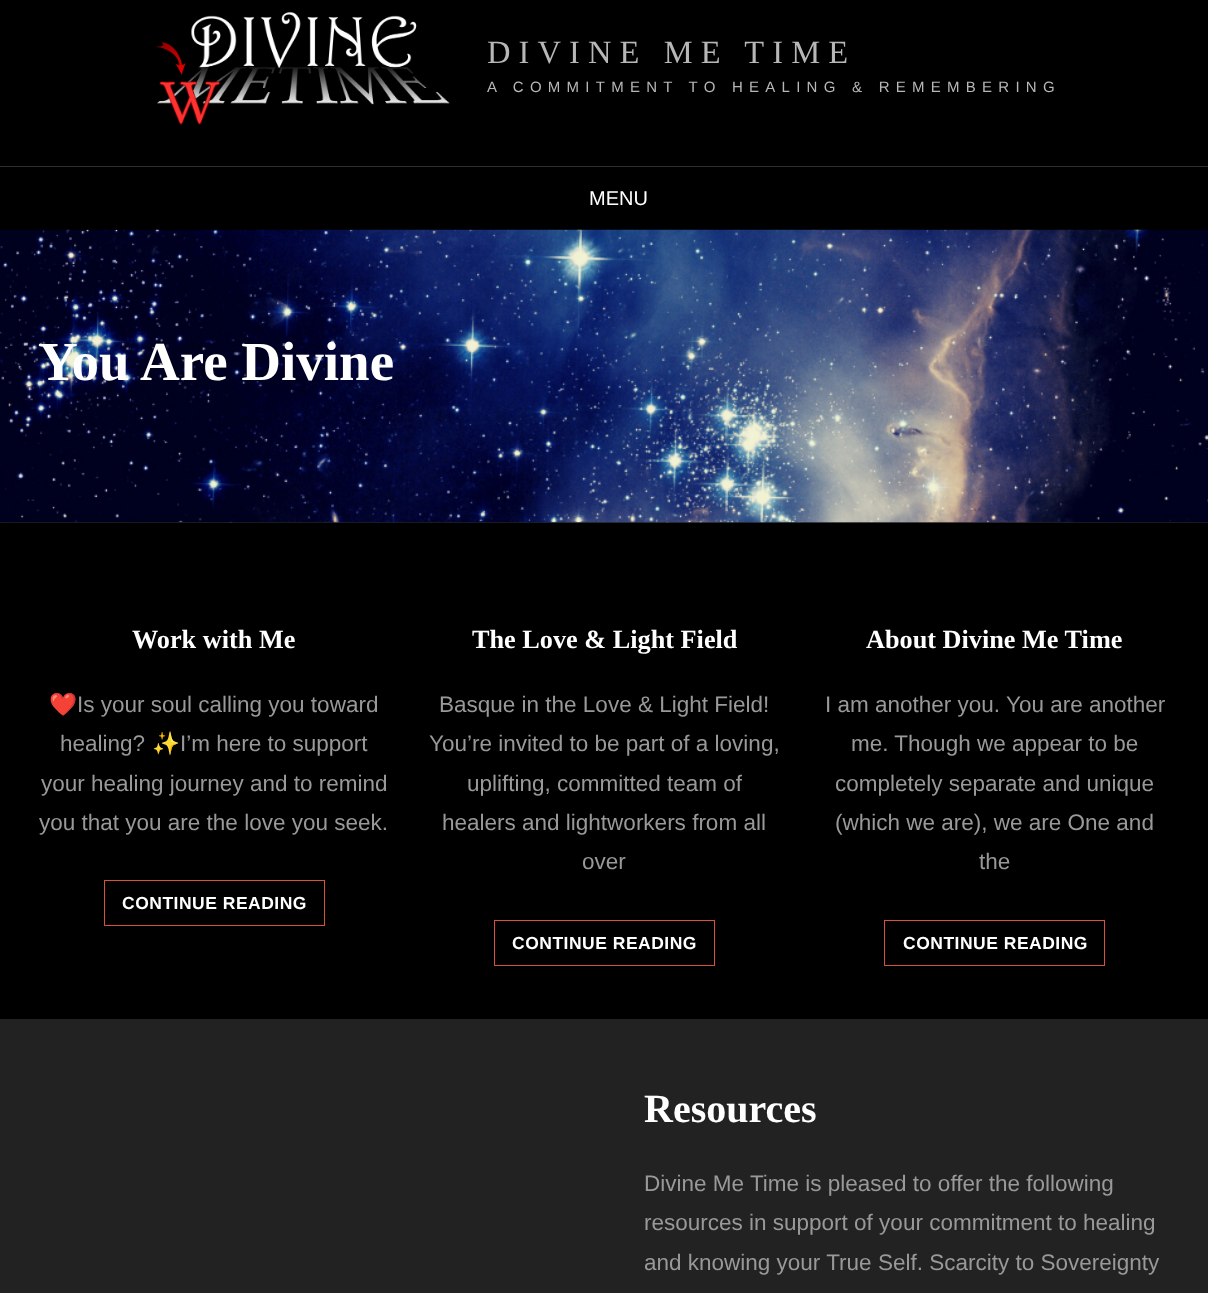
<svg xmlns="http://www.w3.org/2000/svg" width="1208" height="1293">
<rect width="100%" height="100%" fill="#000"/>
<image x="155" y="11" width="295" height="114" href="media/1.png"/>
<text x="487" y="63" style="font-family:Liberation Serif;font-size:32.5px;letter-spacing:8.1px;fill:#b7b7b7">DIVINE ME TIME</text>
<text x="487" y="92" style="font-family:Liberation Sans;font-size:15px;letter-spacing:6.25px;fill:#b7b7b7">A COMMITMENT TO HEALING &amp; REMEMBERING</text>
<rect y="166" width="1208" height="1" fill="#2f2f2f"/>
<text x="589" y="205" style="font-family:Liberation Sans;font-size:20px;fill:#fff">MENU</text>
<rect y="522" width="1208" height="1" fill="#222"/>
<image x="0" y="229" width="1208" height="294" href="media/2.png"/>
<text x="38" y="380" style="font-family:Liberation Serif;font-size:55px;font-weight:bold;fill:#fff">You</text>
<text x="140" y="380" style="font-family:Liberation Serif;font-size:55px;font-weight:bold;fill:#fff">Are Divine</text>
<text x="132" y="648" style="font-family:Liberation Serif;font-size:26.25px;font-weight:bold;fill:#fff">Work with Me</text>
<text x="49" y="712" style="font-family:Noto Color Emoji;font-size:22.5px;fill:#999">❤️</text>
<text x="77" y="712" style="font-family:Liberation Sans;font-size:22.5px;fill:#999">Is your soul calling you toward</text>
<text x="60" y="751" style="font-family:Liberation Sans;font-size:22.5px;fill:#999">healing?</text>
<text x="152" y="751" style="font-family:Noto Color Emoji;font-size:22.5px;fill:#999">✨</text>
<text x="180" y="751" style="font-family:Liberation Sans;font-size:22.5px;fill:#999">I’m here to support</text>
<text x="41" y="791" style="font-family:Liberation Sans;font-size:22.5px;fill:#999">your healing journey and to remind</text>
<text x="39" y="830" style="font-family:Liberation Sans;font-size:22.5px;fill:#999">you that you are the love you seek.</text>
<rect x="104.5" y="880.5" width="220" height="45" fill="none" stroke="#db4f3d"/>
<text x="122" y="909" style="font-family:Liberation Sans;font-size:17.5px;font-weight:bold;letter-spacing:0.5px;fill:#fff">CONTINUE READING</text>
<text x="472" y="648" style="font-family:Liberation Serif;font-size:26.25px;font-weight:bold;fill:#fff">The Love &amp; Light Field</text>
<text x="439" y="712" style="font-family:Liberation Sans;font-size:22.5px;fill:#999">Basque in the Love &amp; Light Field!</text>
<text x="429" y="751" style="font-family:Liberation Sans;font-size:22.5px;fill:#999">You’re invited to be part of a loving,</text>
<text x="467" y="791" style="font-family:Liberation Sans;font-size:22.5px;fill:#999">uplifting, committed team of</text>
<text x="442" y="830" style="font-family:Liberation Sans;font-size:22.5px;fill:#999">healers and lightworkers from all</text>
<text x="582" y="869" style="font-family:Liberation Sans;font-size:22.5px;fill:#999">over</text>
<rect x="494.5" y="920.5" width="220" height="45" fill="none" stroke="#db4f3d"/>
<text x="512" y="949" style="font-family:Liberation Sans;font-size:17.5px;font-weight:bold;letter-spacing:0.5px;fill:#fff">CONTINUE READING</text>
<text x="866" y="648" style="font-family:Liberation Serif;font-size:26.25px;font-weight:bold;fill:#fff">About Divine Me Time</text>
<text x="825" y="712" style="font-family:Liberation Sans;font-size:22.5px;fill:#999">I am another you. You are another</text>
<text x="851" y="751" style="font-family:Liberation Sans;font-size:22.5px;fill:#999">me. Though we appear to be</text>
<text x="835" y="791" style="font-family:Liberation Sans;font-size:22.5px;fill:#999">completely separate and unique</text>
<text x="835" y="830" style="font-family:Liberation Sans;font-size:22.5px;fill:#999">(which we are), we are One and</text>
<text x="979" y="869" style="font-family:Liberation Sans;font-size:22.5px;fill:#999">the</text>
<rect x="884.5" y="920.5" width="220" height="45" fill="none" stroke="#db4f3d"/>
<text x="903" y="949" style="font-family:Liberation Sans;font-size:17.5px;font-weight:bold;letter-spacing:0.5px;fill:#fff">CONTINUE READING</text>
<rect y="1019" width="1208" height="274" fill="#222"/>
<text x="644" y="1122" style="font-family:Liberation Serif;font-size:40px;font-weight:bold;fill:#fff">Resources</text>
<text x="644" y="1191" style="font-family:Liberation Sans;font-size:22.5px;fill:#999">Divine Me Time is pleased to offer the following</text>
<text x="644" y="1230" style="font-family:Liberation Sans;font-size:22.5px;fill:#999">resources in support of your commitment to healing</text>
<text x="644" y="1270" style="font-family:Liberation Sans;font-size:22.5px;fill:#999">and knowing your True Self. Scarcity to Sovereignty</text>
</svg>
